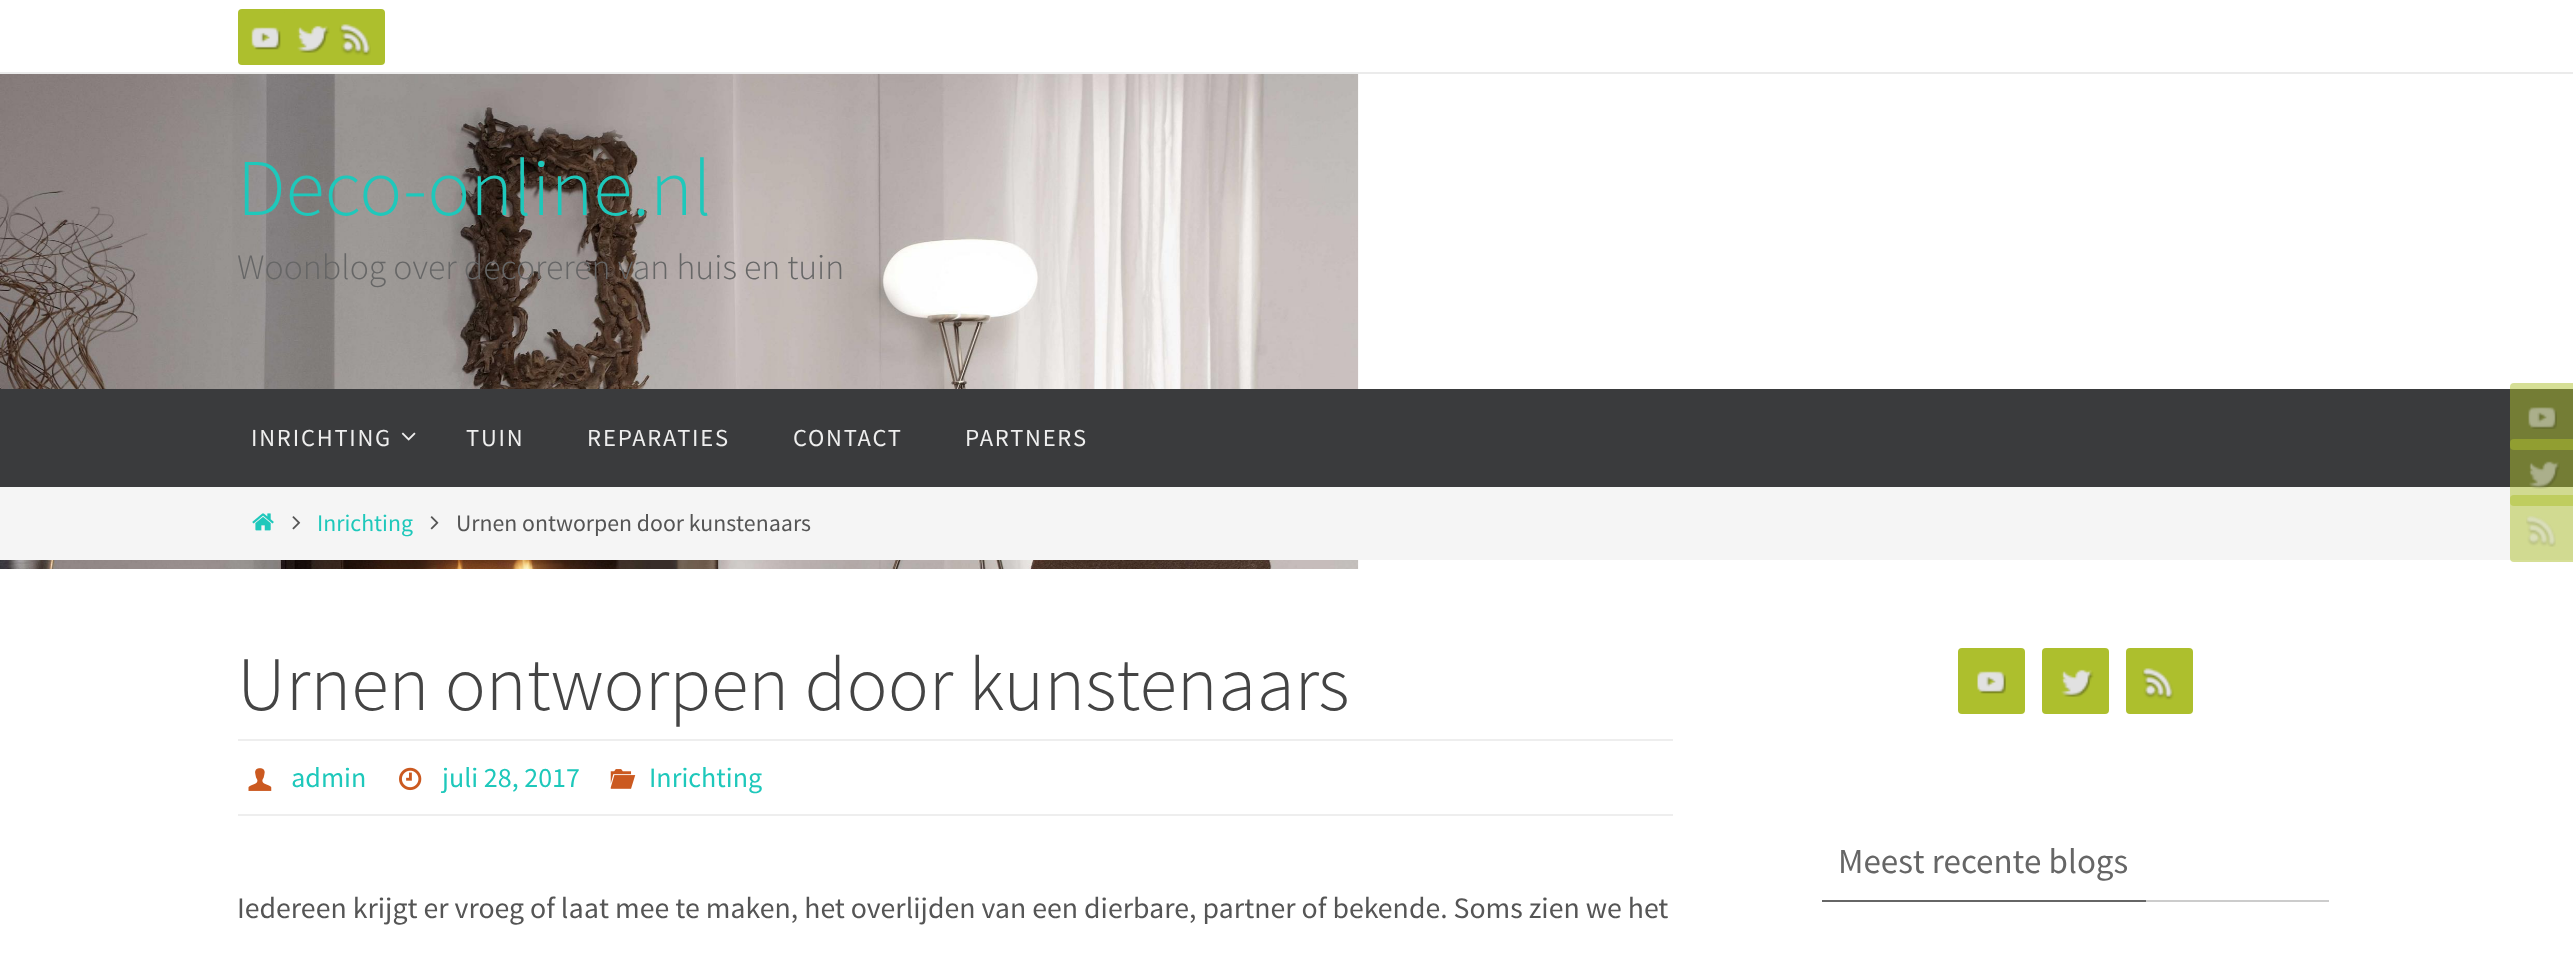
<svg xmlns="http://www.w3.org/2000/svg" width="2573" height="964">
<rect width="100%" height="100%" fill="#fff"/>
<image x="0" y="74" width="1359" height="495" href="media/1.png"/>
<rect y="72" width="2573" height="2" fill="#ebebeb"/>
<rect x="238" y="9" width="56" height="56" rx="4" fill="#adbf2d"/>
<image x="251" y="27" width="30" height="23" href="media/2.png"/>
<rect x="284" y="9" width="56" height="56" rx="4" fill="#adbf2d"/>
<rect x="329" y="9" width="56" height="56" rx="4" fill="#adbf2d"/>
<image x="297" y="25" width="33" height="28" href="media/3.png"/>
<image x="339" y="24" width="32" height="32" href="media/4.png"/>
<text x="237" y="215" style="font-family:Source Sans Pro;font-size:80.5px;font-weight:300;fill:#1ec8bb">Deco-online.nl</text>
<text x="237" y="279" style="font-family:Source Sans Pro;font-size:35.75px;font-weight:300;fill:#666">Woonblog over decoreren van huis en tuin</text>
<rect y="389" width="2573" height="98" fill="#3a3b3d"/>
<text x="251" y="446" style="font-family:Source Sans Pro;font-size:24.5px;letter-spacing:1.75px;fill:#eee">INRICHTING</text>
<image x="401" y="432" width="15" height="9" href="media/5.png"/>
<text x="466" y="446" style="font-family:Source Sans Pro;font-size:24.5px;letter-spacing:1.75px;fill:#eee">TUIN</text>
<text x="587" y="446" style="font-family:Source Sans Pro;font-size:24.5px;letter-spacing:1.75px;fill:#eee">REPARATIES</text>
<text x="793" y="446" style="font-family:Source Sans Pro;font-size:24.5px;letter-spacing:1.75px;fill:#eee">CONTACT</text>
<text x="965" y="446" style="font-family:Source Sans Pro;font-size:24.5px;letter-spacing:1.75px;fill:#eee">PARTNERS</text>
<rect y="487" width="2573" height="73" fill="#f5f5f5"/>
<image x="252" y="513" width="22" height="18" href="media/6.png"/>
<image x="292" y="516" width="9" height="14" href="media/7.png"/>
<text x="317" y="531" style="font-family:Source Sans Pro;font-size:23.75px;fill:#1ec8bb">Inrichting</text>
<image x="430" y="516" width="9" height="14" href="media/8.png"/>
<text x="456" y="531" style="font-family:Source Sans Pro;font-size:23.75px;fill:#555">Urnen ontworpen door kunstenaars</text>
<rect x="2510" y="383" width="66" height="67" rx="4" fill="#adbf2d80"/>
<image x="2528" y="407" width="29" height="22" href="media/9.png"/>
<rect x="2510" y="439" width="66" height="67" rx="4" fill="#adbf2d80"/>
<image x="2529" y="461" width="31" height="28" href="media/10.png"/>
<rect x="2510" y="495" width="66" height="67" rx="4" fill="#adbf2d80"/>
<image x="2526" y="516" width="30" height="31" href="media/11.png"/>
<text x="237" y="710" style="font-family:Source Sans Pro;font-size:77px;font-weight:300;fill:#444">Urnen ontworpen door kunstenaars</text>
<rect x="238" y="739" width="1435" height="2" fill="#eee"/>
<rect x="238" y="814" width="1435" height="2" fill="#eee"/>
<image x="248" y="768" width="24" height="23" href="media/12.png"/>
<text x="291" y="787" style="font-family:Source Sans Pro;font-size:28px;fill:#1ec8bb">admin</text>
<image x="399" y="767" width="23" height="24" href="media/13.png"/>
<text x="442" y="787" style="font-family:Source Sans Pro;font-size:28px;fill:#1ec8bb">juli 28, 2017</text>
<image x="610" y="769" width="26" height="20" href="media/14.png"/>
<text x="649" y="787" style="font-family:Source Sans Pro;font-size:28px;fill:#1ec8bb">Inrichting</text>
<text x="237" y="918" style="font-family:Source Sans Pro;font-size:29.75px;fill:#555">Iedereen krijgt er vroeg of laat mee te maken, het overlijden van een dierbare, partner of bekende. Soms zien we het</text>
<rect x="1958" y="648" width="67" height="66" rx="4" fill="#adbf2d"/>
<image x="1977" y="671" width="29" height="23" href="media/15.png"/>
<rect x="2042" y="648" width="67" height="66" rx="4" fill="#adbf2d"/>
<image x="2061" y="669" width="33" height="28" href="media/3.png"/>
<rect x="2126" y="648" width="67" height="66" rx="4" fill="#adbf2d"/>
<image x="2142" y="668" width="32" height="32" href="media/16.png"/>
<rect x="2146" y="900" width="183" height="2" fill="#ccc"/>
<rect x="1822" y="900" width="324" height="2" fill="#666"/>
<text x="1838" y="873" style="font-family:Source Sans Pro;font-size:35px;fill:#666">Meest recente blogs</text>
</svg>
